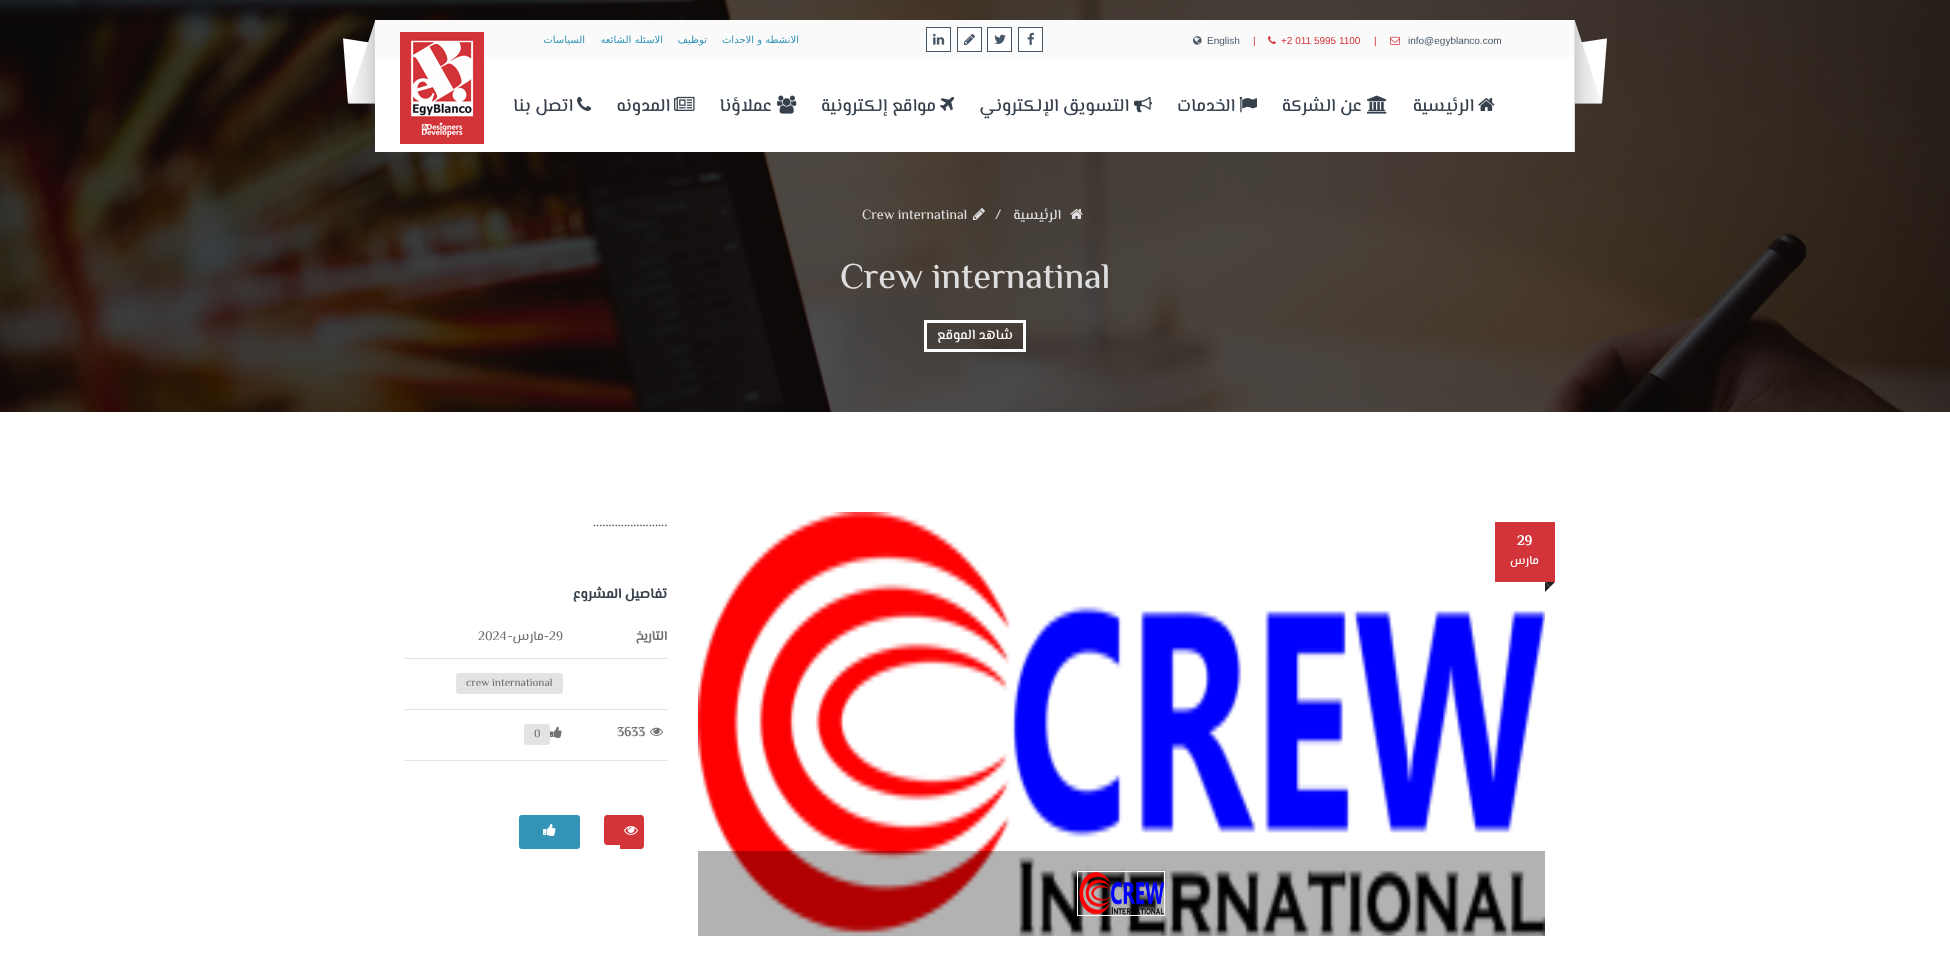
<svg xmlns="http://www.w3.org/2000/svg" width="1950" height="965">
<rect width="100%" height="100%" fill="#fff"/>
<image x="0" y="0" width="1950" height="412" href="media/18.png"/>
<image x="343" y="20" width="1264" height="132" href="media/1.png"/>
<text x="1408" y="44" style="font-family:Liberation Sans;font-size:10px;fill:#475766">info@egyblanco.com</text>
<image x="1390" y="36" width="10" height="9" href="media/2.png"/>
<text x="1374" y="44" style="font-family:Liberation Sans;font-size:10px;fill:#d33439">|</text>
<text x="1281" y="44" style="font-family:Liberation Sans;font-size:10px;fill:#d33439">+2 011 5995 1100</text>
<image x="1268" y="36" width="8" height="8" href="media/3.png"/>
<text x="1253" y="44" style="font-family:Liberation Sans;font-size:10px;fill:#d33439">|</text>
<text x="1207" y="44" style="font-family:Liberation Sans;font-size:10px;fill:#475766">English</text>
<image x="1193" y="36" width="9" height="9" href="media/4.png"/>
<rect x="1018.5" y="27.5" width="24" height="24" fill="#fff" stroke="#475766"/>
<image x="1027" y="32" width="7" height="13" href="media/5.png"/>
<rect x="987.5" y="27.5" width="24" height="24" fill="#fff" stroke="#475766"/>
<image x="994" y="34" width="12" height="10" href="media/6.png"/>
<rect x="957.5" y="27.5" width="24" height="24" fill="#fff" stroke="#475766"/>
<image x="964" y="34" width="11" height="11" href="media/7.png"/>
<rect x="926.5" y="27.5" width="24" height="24" fill="#fff" stroke="#475766"/>
<image x="933" y="33" width="12" height="12" href="media/8.png"/>
<text x="799" y="43" style="font-family:DejaVu Sans;font-size:10px;direction:rtl;fill:#3394b7">الانشطه و الاحداث</text>
<text x="707" y="43" style="font-family:DejaVu Sans;font-size:10px;direction:rtl;fill:#3394b7">توظيف</text>
<text x="663" y="43" style="font-family:DejaVu Sans;font-size:10px;direction:rtl;fill:#3394b7">الاسئله الشائعه</text>
<text x="585" y="43" style="font-family:DejaVu Sans;font-size:10px;direction:rtl;fill:#3394b7">السياسات</text>
<image x="1478" y="98" width="17" height="13" href="media/9.png"/>
<text x="1474" y="111" style="font-family:El Messiri;font-size:18px;font-weight:500;direction:rtl;fill:#36414d">الرئيسية</text>
<image x="1367" y="95" width="20" height="19" href="media/10.png"/>
<text x="1362" y="111" style="font-family:El Messiri;font-size:18px;font-weight:500;direction:rtl;fill:#36414d">عن الشركة</text>
<image x="1239" y="96" width="18" height="17" href="media/11.png"/>
<text x="1235" y="111" style="font-family:El Messiri;font-size:18px;font-weight:500;direction:rtl;fill:#36414d">الخدمات</text>
<image x="1134" y="96" width="18" height="17" href="media/12.png"/>
<text x="1129" y="111" style="font-family:El Messiri;font-size:18px;font-weight:500;direction:rtl;fill:#36414d">التسويق الإلكتروني</text>
<image x="940" y="97" width="14" height="14" href="media/13.png"/>
<text x="936" y="111" style="font-family:El Messiri;font-size:18px;font-weight:500;direction:rtl;fill:#36414d">مواقع إلكترونية</text>
<image x="777" y="95" width="20" height="19" href="media/14.png"/>
<text x="772" y="111" style="font-family:El Messiri;font-size:18px;font-weight:500;direction:rtl;fill:#36414d">عملاؤنا</text>
<image x="674" y="96" width="21" height="15" href="media/15.png"/>
<text x="670" y="111" style="font-family:El Messiri;font-size:18px;font-weight:500;direction:rtl;fill:#36414d">المدونه</text>
<image x="577" y="96" width="15" height="15" href="media/16.png"/>
<text x="573" y="111" style="font-family:El Messiri;font-size:18px;font-weight:500;direction:rtl;fill:#36414d">اتصل بنا</text>
<image x="400" y="32" width="84" height="112" href="media/17.png"/>
<image x="1070" y="209" width="13" height="10" href="media/19.png"/>
<text x="1061" y="219" style="font-family:El Messiri;font-size:14px;font-weight:500;direction:rtl;fill:#ddd">الرئيسية</text>
<text x="995" y="219" style="font-family:El Messiri;font-size:14px;font-weight:500;fill:#ddd">/</text>
<image x="973" y="208" width="12" height="12" href="media/20.png"/>
<text x="862" y="219" style="font-family:El Messiri;font-size:14px;font-weight:500;fill:#ddd">Crew internatinal</text>
<text x="840" y="288" style="font-family:El Messiri;font-size:36px;font-weight:500;fill:#ddd">Crew internatinal</text>
<rect x="925.5" y="321.5" width="99" height="29" fill="none" stroke="#fff" stroke-width="3"/>
<text x="1013" y="339" style="font-family:El Messiri;font-size:14px;font-weight:500;direction:rtl;fill:#fff">شاهد الموقع</text>
<image x="698" y="512" width="847" height="424" href="media/21.png"/>
<rect x="698" y="851" width="847" height="85" fill="#0000004d"/>
<rect x="1077.5" y="871.5" width="87" height="44" fill="none" stroke="#fff"/>
<image x="1079" y="872" width="86" height="43" href="media/22.png"/>
<rect x="1495" y="522" width="60" height="60" fill="#d33439"/>
<text x="1517" y="545" style="font-family:El Messiri;font-size:14px;font-weight:bold;fill:#fff">29</text>
<text x="1539" y="564" style="font-family:El Messiri;font-size:12px;font-weight:500;direction:rtl;fill:#fff">مارس</text>
<path d="M1545 582h10l-5 5z" fill="#222"/>
<path d="M1545 592v-10l5 5z" fill="#222"/>
<text x="593" y="526" style="font-family:El Messiri;font-size:14px;font-weight:500;fill:#475766">........................</text>
<text x="667" y="598" style="font-family:El Messiri;font-size:14px;font-weight:bold;direction:rtl;fill:#36414d">تفاصيل المشروع</text>
<rect x="405" y="658" width="263" height="1" fill="#e3e3e3"/>
<text x="667" y="640" style="font-family:El Messiri;font-size:13px;font-weight:bold;direction:rtl;fill:#727272">التاريخ</text>
<text x="549" y="640" style="font-family:El Messiri;font-size:13px;font-weight:500;fill:#727272">29</text>
<text x="549" y="640" style="font-family:El Messiri;font-size:13px;font-weight:500;direction:rtl;fill:#727272">-مارس-</text>
<text x="478" y="640" style="font-family:El Messiri;font-size:13px;font-weight:500;fill:#727272">2024</text>
<rect x="405" y="709" width="263" height="1" fill="#e3e3e3"/>
<rect x="456" y="673" width="107" height="21" rx="3" fill="#e3e3e3"/>
<text x="466" y="686" style="font-family:El Messiri;font-size:11px;font-weight:500;fill:#727272">crew international</text>
<rect x="405" y="760" width="263" height="1" fill="#e3e3e3"/>
<image x="650" y="727" width="13" height="9" href="media/23.png"/>
<text x="617" y="736" style="font-family:El Messiri;font-size:13px;font-weight:bold;fill:#727272">3633</text>
<image x="550" y="726" width="12" height="12" href="media/24.png"/>
<rect x="524" y="724" width="26" height="21" rx="3" fill="#e3e3e3"/>
<text x="534" y="737" style="font-family:El Messiri;font-size:11px;font-weight:500;fill:#727272">0</text>
<path d="M607 815h31v30h-31c-1.5 0-3-1.5-3-3v-24c0-1.5 1.5-3 3-3z" fill="#d33439"/>
<path d="M620 815h21c1.5 0 3 1.5 3 3v28c0 1.5-1.5 3-3 3h-21z" fill="#d33439"/>
<image x="624" y="826" width="14" height="9" href="media/25.png"/>
<rect x="519" y="815" width="61" height="34" rx="3" fill="#3394b7"/>
<image x="543" y="824" width="13" height="12" href="media/26.png"/>
</svg>
